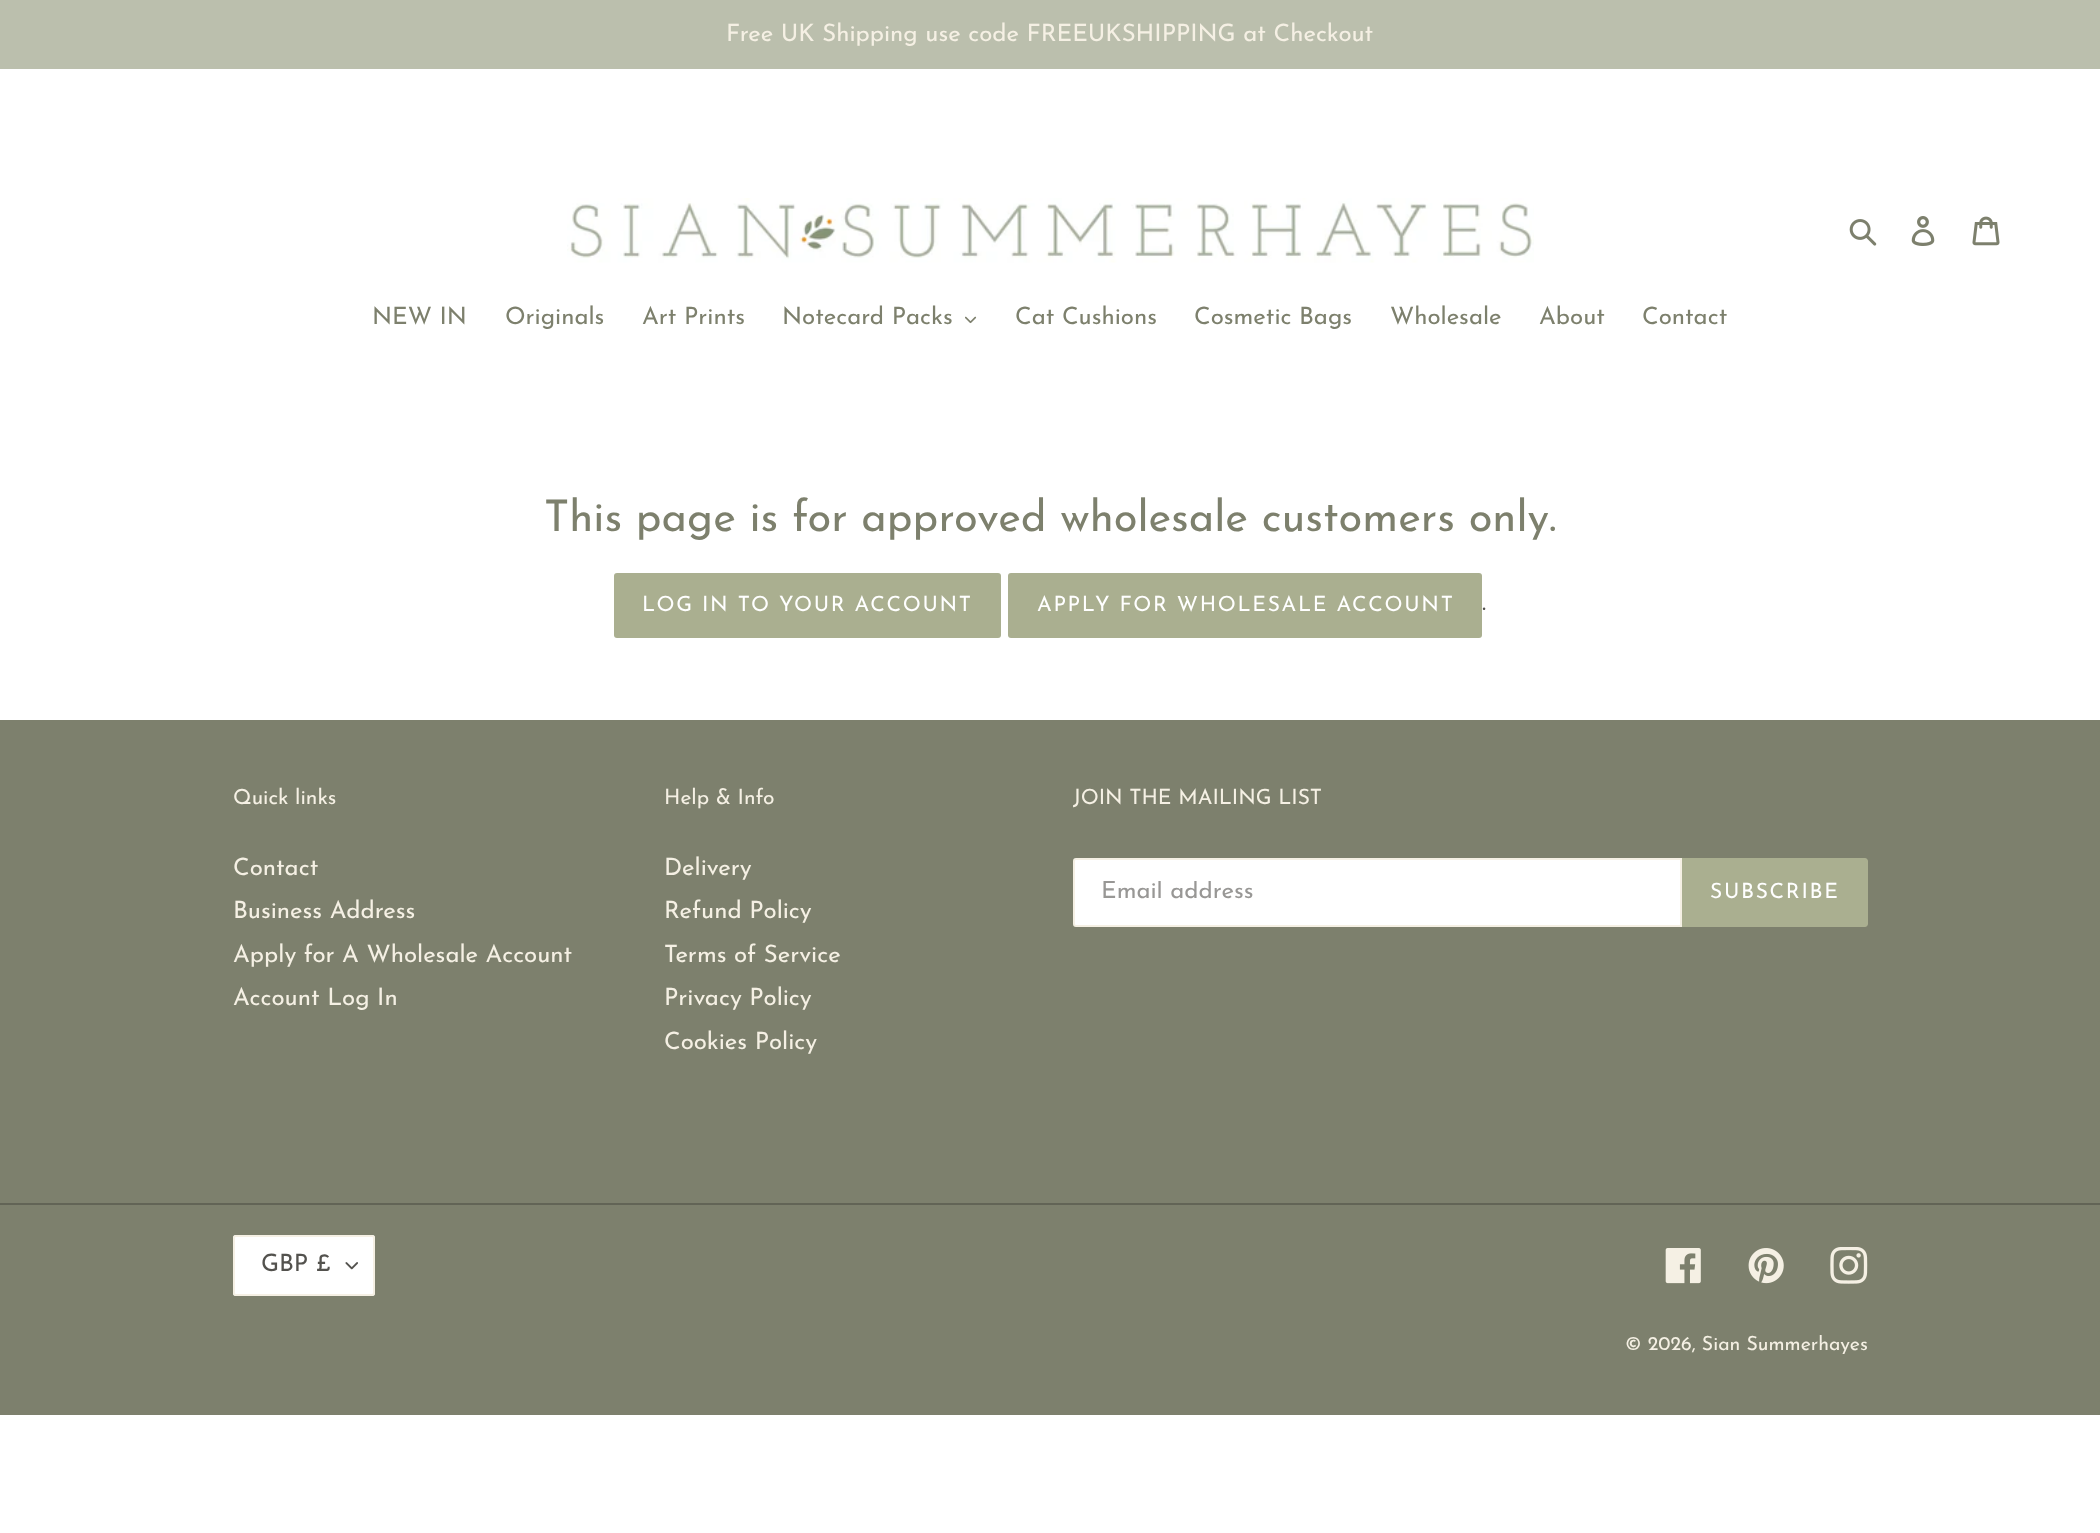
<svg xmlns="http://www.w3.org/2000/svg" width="2100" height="1533">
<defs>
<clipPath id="clip1"><rect x="1101" y="881" width="552" height="24"/></clipPath>
</defs>
<rect width="100%" height="100%" fill="#fff"/>
<rect width="2100" height="69" fill="#bbbfad"/>
<text x="726" y="41" style="font-family:Josefin Sans;font-size:24px;fill:#f5f0e4">Free UK Shipping use code FREEUKSHIPPING at Checkout</text>
<image x="567" y="198" width="967" height="65" href="media/1.png"/>
<image x="1849" y="219" width="28" height="27" href="media/2.png"/>
<image x="1911" y="216" width="24" height="30" href="media/3.png"/>
<image x="1972" y="216" width="28" height="30" href="media/4.png"/>
<text x="372" y="324" style="font-family:Josefin Sans;font-size:24px;fill:#7d806d">NEW IN</text>
<text x="505" y="324" style="font-family:Josefin Sans;font-size:24px;fill:#7d806d">Originals</text>
<text x="642" y="324" style="font-family:Josefin Sans;font-size:24px;fill:#7d806d">Art Prints</text>
<text x="782" y="324" style="font-family:Josefin Sans;font-size:24px;fill:#7d806d">Notecard Packs</text>
<image x="965" y="316" width="12" height="8" href="media/5.png"/>
<text x="1015" y="324" style="font-family:Josefin Sans;font-size:24px;fill:#7d806d">Cat Cushions</text>
<text x="1194" y="324" style="font-family:Josefin Sans;font-size:24px;fill:#7d806d">Cosmetic Bags</text>
<text x="1390" y="324" style="font-family:Josefin Sans;font-size:24px;fill:#7d806d">Wholesale</text>
<text x="1539" y="324" style="font-family:Josefin Sans;font-size:24px;fill:#7d806d">About</text>
<text x="1642" y="324" style="font-family:Josefin Sans;font-size:24px;fill:#7d806d">Contact</text>
<text x="544" y="531" style="font-family:Josefin Sans;font-size:43.5px;fill:#7d806d">This page is for approved wholesale customers only.</text>
<rect x="614" y="573" width="387" height="65" rx="3" fill="#aaaf90"/>
<text x="642" y="611" style="font-family:Josefin Sans;font-size:21px;letter-spacing:1.7px;fill:#fff">LOG IN TO YOUR ACCOUNT</text>
<rect x="1008" y="573" width="474" height="65" rx="3" fill="#aaaf90"/>
<text x="1037" y="611" style="font-family:Josefin Sans;font-size:21px;letter-spacing:1.7px;fill:#fff">APPLY FOR WHOLESALE ACCOUNT</text>
<text x="1482" y="610" style="font-family:Josefin Sans;font-size:24px;fill:#53524e">.</text>
<rect y="720" width="2100" height="695" fill="#7d806d"/>
<text x="233" y="804" style="font-family:Josefin Sans;font-size:21px;fill:#f5f0e4">Quick links</text>
<text x="233" y="875" style="font-family:Josefin Sans;font-size:24px;fill:#f5f0e4">Contact</text>
<text x="233" y="918" style="font-family:Josefin Sans;font-size:24px;fill:#f5f0e4">Business Address</text>
<text x="233" y="962" style="font-family:Josefin Sans;font-size:24px;fill:#f5f0e4">Apply for A Wholesale Account</text>
<text x="233" y="1005" style="font-family:Josefin Sans;font-size:24px;fill:#f5f0e4">Account Log In</text>
<text x="664" y="804" style="font-family:Josefin Sans;font-size:21px;fill:#f5f0e4">Help &amp; Info</text>
<text x="664" y="875" style="font-family:Josefin Sans;font-size:24px;fill:#f5f0e4">Delivery</text>
<text x="664" y="918" style="font-family:Josefin Sans;font-size:24px;fill:#f5f0e4">Refund Policy</text>
<text x="664" y="962" style="font-family:Josefin Sans;font-size:24px;fill:#f5f0e4">Terms of Service</text>
<text x="664" y="1005" style="font-family:Josefin Sans;font-size:24px;fill:#f5f0e4">Privacy Policy</text>
<text x="664" y="1049" style="font-family:Josefin Sans;font-size:24px;fill:#f5f0e4">Cookies Policy</text>
<text x="1073" y="804" style="font-family:Josefin Sans;font-size:21px;fill:#f5f0e4">JOIN THE MAILING LIST</text>
<path d="M1076 859h605v67h-605c-1 0-2-1-2-2v-63c0-1 1-2 2-2z" fill="#fff" stroke="#f5f0e4" stroke-width="2"/>
<g clip-path="url(#clip1)">
<text x="1101" y="898" style="font-family:Josefin Sans;font-size:24px;fill:#989795">Email address</text>
</g>
<path d="M1682 858h183c1.5 0 3 1.5 3 3v63c0 1.5-1.5 3-3 3h-183z" fill="#aaaf90"/>
<text x="1710" y="898" style="font-family:Josefin Sans;font-size:21px;letter-spacing:1.7px;fill:#fff">SUBSCRIBE</text>
<rect y="1203" width="2100" height="2" fill="#626456"/>
<rect x="233" y="1235" width="142" height="61" rx="3" fill="#fff"/>
<image x="345" y="1262" width="13" height="8" href="media/6.png"/>
<rect x="234" y="1236" width="140" height="59" rx="2" fill="none" stroke="#f5f0e4" stroke-width="2"/>
<text x="261" y="1271" style="font-family:Josefin Sans;font-size:24px;fill:#53524e">GBP £</text>
<image x="1665" y="1248" width="36" height="36" href="media/7.png"/>
<image x="1748" y="1248" width="36" height="36" href="media/8.png"/>
<image x="1830" y="1247" width="38" height="37" href="media/9.png"/>
<text x="1625" y="1350" style="font-family:Josefin Sans;font-size:19.5px;fill:#f5f0e4">© 2026, Sian Summerhayes</text>
</svg>
